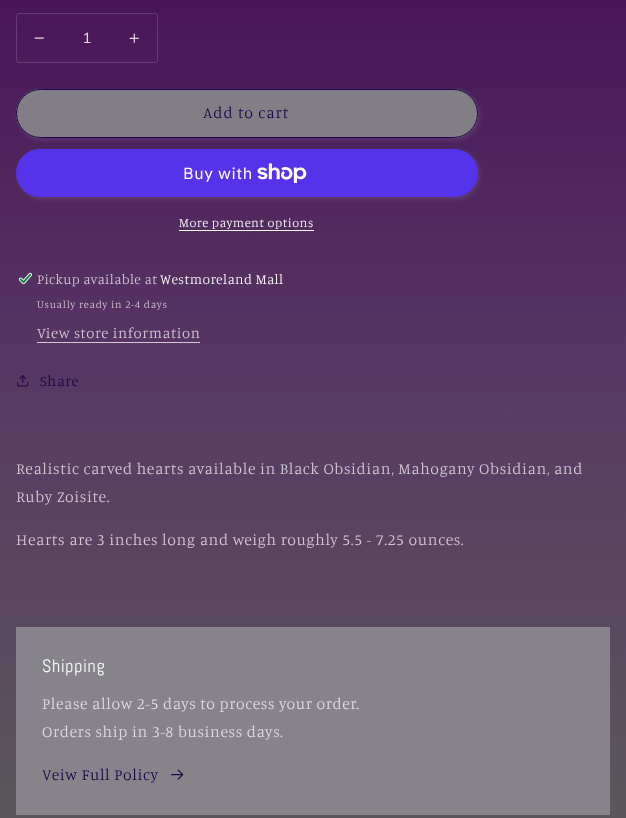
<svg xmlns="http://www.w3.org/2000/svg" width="626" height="818">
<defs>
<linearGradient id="g1" gradientUnits="userSpaceOnUse" x1="313" y1="0" x2="313" y2="818"><stop offset="0" stop-color="#481559"/><stop offset="0.5" stop-color="#593b63"/><stop offset="1" stop-color="#5a575b"/></linearGradient>
</defs>
<rect width="100%" height="100%" fill="#fff"/>
<rect width="626" height="818" fill="url(#g1)"/>
<image x="34" y="37" width="10" height="2" href="media/1.png"/>
<image x="129" y="33" width="10" height="10" href="media/2.png"/>
<rect x="16.5" y="13.5" width="141" height="49" rx="2.5" fill="none" stroke="#fcfcfc26"/>
<text x="83" y="43" style="font-family:Liberation Sans;font-size:14.75px;fill:#e1dae4">1</text>
<rect x="18" y="91" width="462" height="49" rx="24.5" fill="#fcfcfc1a" filter="blur(2.5px)"/>
<rect x="16" y="89" width="462" height="49" rx="24.5" fill="#817e86"/>
<rect x="16.5" y="89.5" width="461" height="48" rx="24" fill="none" stroke="#817e86"/>
<rect x="16.5" y="89.5" width="461" height="48" rx="24" fill="none" stroke="#1b0546"/>
<text x="203" y="118" style="font-family:Manuale;font-size:15.75px;font-weight:300;letter-spacing:1px;fill:#1b0546">Add to cart</text>
<rect x="18" y="151" width="462" height="48" rx="24" fill="#fcfcfc1a" filter="blur(2.5px)"/>
<rect x="16" y="149" width="462" height="48" rx="24" fill="#5433eb"/>
<text x="183" y="179" style="font-family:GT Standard;font-size:16px;letter-spacing:0.63px;fill:#fcfcfc">Buy with</text>
<image x="257" y="163" width="50" height="20" href="media/3.png"/>
<text x="179" y="227" style="font-family:Manuale;font-size:12.6px;font-weight:300;letter-spacing:0.5px;fill:#fcfcfc">More payment options</text>
<rect x="179" y="230" width="135" height="1" fill="#fcfcfc"/>
<image x="18" y="272" width="14" height="13" href="media/4.png"/>
<text x="37" y="284" style="font-family:Manuale;font-size:13.75px;font-weight:300;letter-spacing:0.4px;fill:#d2c9d5">Pickup available at</text>
<text x="160" y="284" style="font-family:Manuale;font-size:13.75px;font-weight:300;letter-spacing:0.4px;fill:#fcfcfc">Westmoreland Mall</text>
<text x="37" y="308" style="font-family:Manuale;font-size:10.5px;font-weight:300;letter-spacing:0.75px;fill:#d2c9d5">Usually ready in 2-4 days</text>
<text x="37" y="338" style="font-family:Manuale;font-size:14.75px;font-weight:300;letter-spacing:0.63px;fill:#d2c9d5">View store information</text>
<rect x="37" y="342" width="163" height="1" fill="#d3cad5"/>
<image x="17" y="375" width="12" height="12" href="media/5.png"/>
<text x="40" y="386" style="font-family:Manuale;font-size:14.75px;font-weight:300;letter-spacing:0.63px;fill:#1b0546">Share</text>
<text x="16" y="474" style="font-family:Manuale;font-size:15.75px;font-weight:300;letter-spacing:0.63px;fill:#d2c9d5">Realistic carved hearts available in Black Obsidian, Mahogany Obsidian, and</text>
<text x="16" y="502" style="font-family:Manuale;font-size:15.75px;font-weight:300;letter-spacing:0.63px;fill:#d2c9d5">Ruby Zoisite.</text>
<text x="16" y="545" style="font-family:Manuale;font-size:15.75px;font-weight:300;letter-spacing:0.63px;fill:#d2c9d5">Hearts are 3 inches long and weigh roughly 5.5 - 7.25 ounces.</text>
<rect x="16" y="627" width="594" height="188" fill="#86838b"/>
<text x="42" y="672" style="font-family:Abel;font-size:18px;letter-spacing:0.63px;fill:#fcfcfc">Shipping</text>
<text x="42" y="709" style="font-family:Manuale;font-size:15.75px;font-weight:300;letter-spacing:0.63px;fill:#e1dae4">Please allow 2-5 days to process your order.</text>
<text x="42" y="737" style="font-family:Manuale;font-size:15.75px;font-weight:300;letter-spacing:0.63px;fill:#e1dae4">Orders ship in 3-8 business days.</text>
<text x="42" y="780" style="font-family:Manuale;font-size:15.75px;font-weight:300;letter-spacing:0.63px;fill:#1b0546">Veiw Full Policy</text>
<image x="171" y="769" width="13" height="11" href="media/6.png"/>
</svg>
